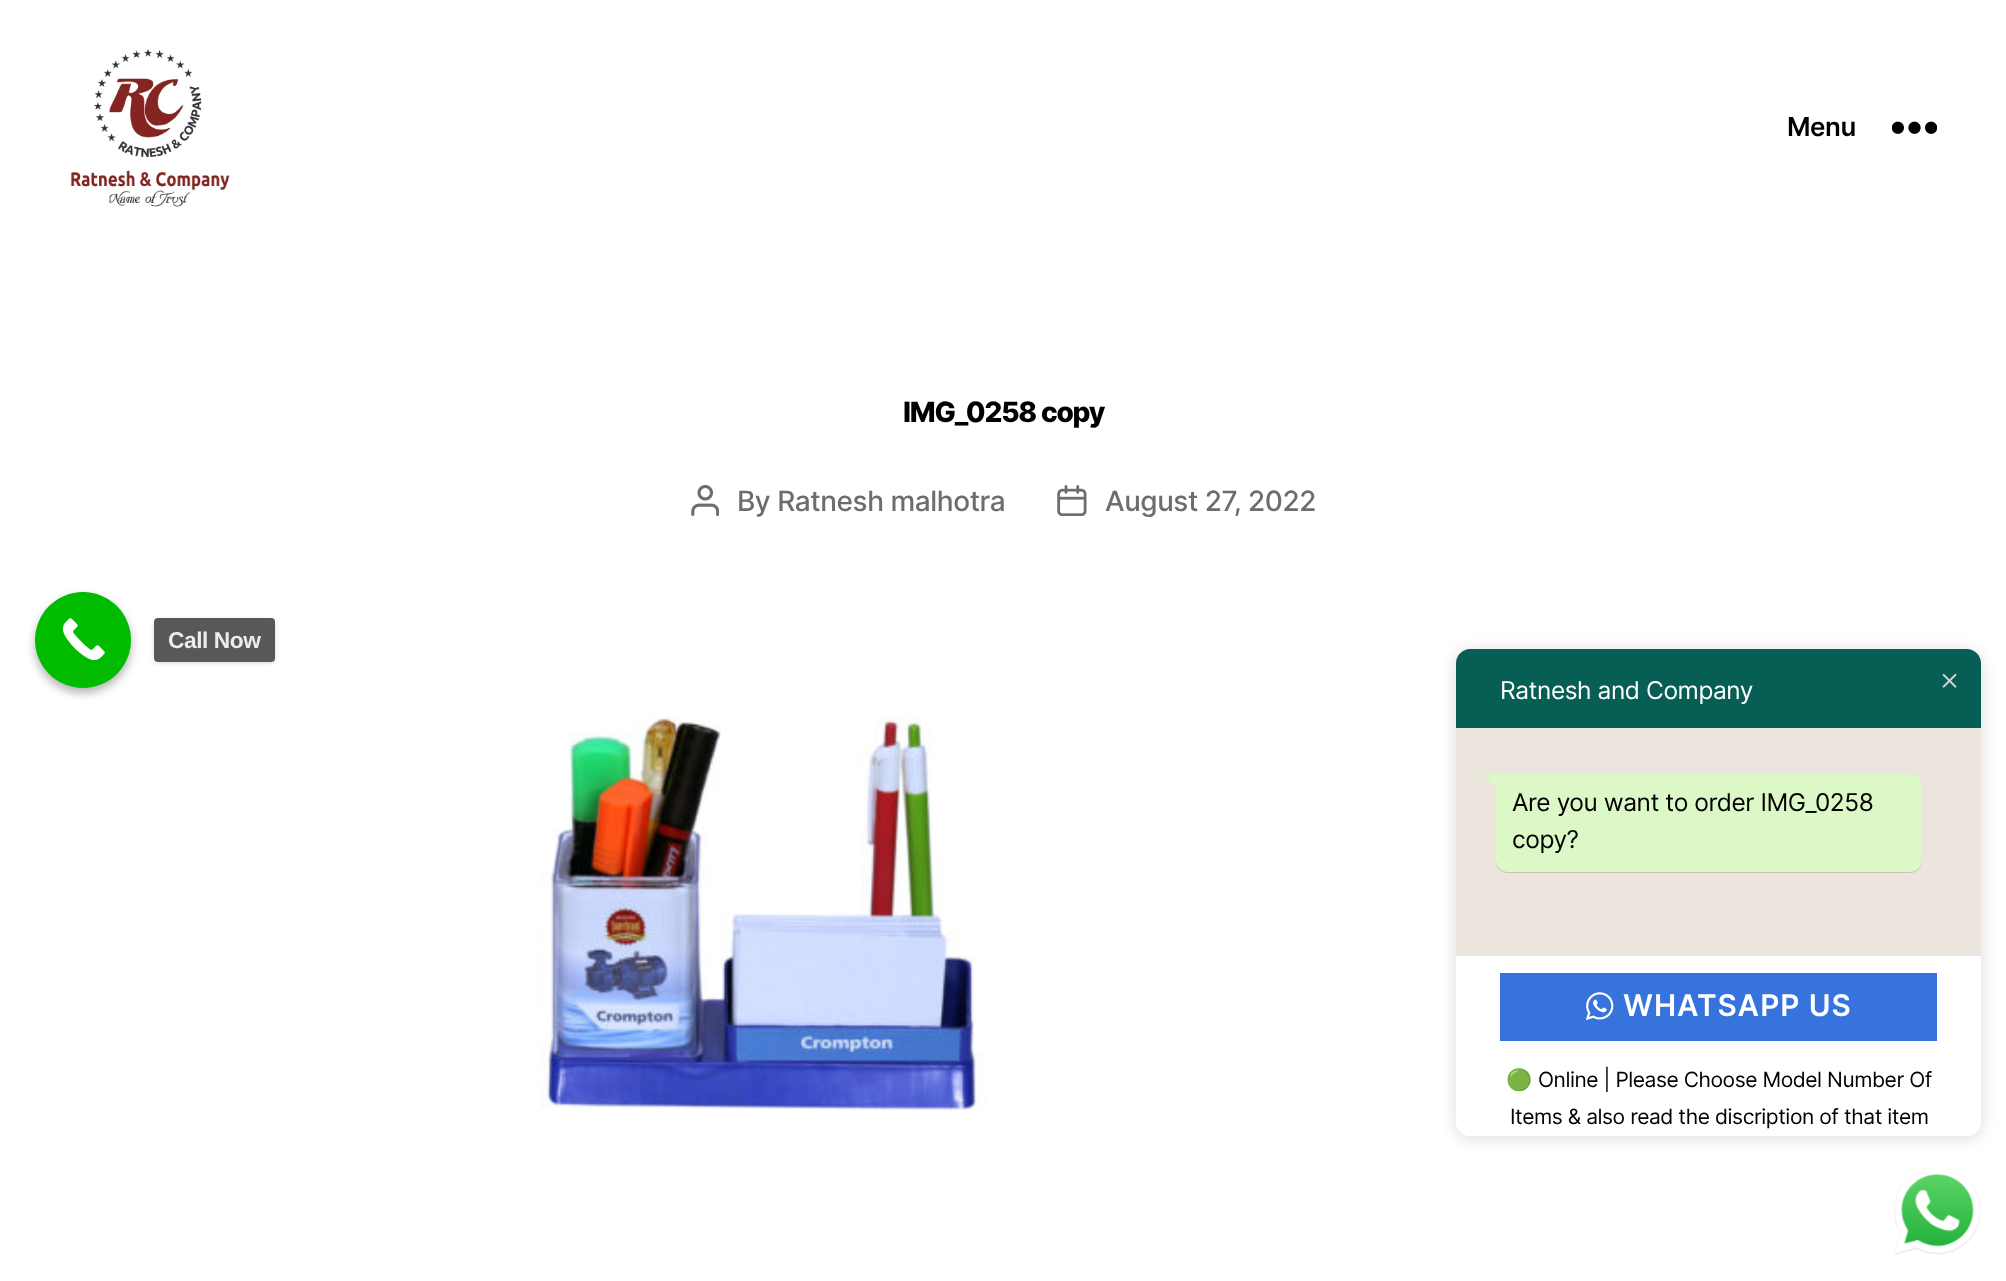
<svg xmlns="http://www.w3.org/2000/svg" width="2006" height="1281">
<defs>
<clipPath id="clip1"><path d="M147 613h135v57h-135zm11 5h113c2 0 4 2 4 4v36c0 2-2 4-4 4h-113c-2 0-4-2-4-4v-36c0-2 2-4 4-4z" clip-rule="evenodd"/></clipPath>
<clipPath id="clip2"><path d="M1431 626h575v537h-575zm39 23h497c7.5 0 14 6.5 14 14v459c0 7.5-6.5 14-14 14h-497c-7.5 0-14-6.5-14-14v-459c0-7.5 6.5-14 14-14z" clip-rule="evenodd"/></clipPath>
</defs>
<rect width="100%" height="100%" fill="#fff"/>
<image x="70" y="49" width="160" height="158" href="media/1.png"/>
<text x="1787" y="136" style="font-family:Inter;font-size:26px;font-weight:600;letter-spacing:-0.45px;fill:#000">Menu</text>
<image x="1892" y="121" width="45" height="13" href="media/2.png"/>
<text x="903" y="422" style="font-family:Inter;font-size:28px;font-weight:800;letter-spacing:-1.2px;fill:#000">IMG_0258 copy</text>
<image x="691" y="485" width="28" height="31" href="media/3.png"/>
<text x="737" y="511" style="font-family:Inter;font-size:28px;font-weight:500;letter-spacing:-0.45px;fill:#6d6d6d">By Ratnesh malhotra</text>
<image x="1057" y="485" width="30" height="31" href="media/4.png"/>
<text x="1105" y="511" style="font-family:Inter;font-size:28px;font-weight:500;letter-spacing:-0.45px;fill:#6d6d6d">August 27, 2022</text>
<image x="539" y="717" width="448" height="393" href="media/5.png"/>
<rect x="35" y="597" width="96" height="96" rx="48" fill="#0000004d" filter="blur(5px)"/>
<circle cx="83" cy="640" r="48" fill="#0b0"/>
<image x="62" y="618" width="43" height="43" href="media/6.png"/>
<g clip-path="url(#clip1)">
<rect x="154" y="620" width="121" height="43" rx="4" fill="#00000026" filter="blur(2px)"/>
</g>
<rect x="154" y="618" width="121" height="44" rx="4" fill="#464646e6"/>
<text x="168" y="648" style="font-family:Liberation Sans;font-size:22.75px;font-weight:bold;letter-spacing:-0.45px;fill:#ececec">Call Now</text>
<g clip-path="url(#clip2)">
<rect x="1456" y="651" width="525" height="487" rx="14" fill="#00000024" filter="blur(8px)"/>
</g>
<path d="M1470 649h497c7.5 0 14 6.5 14 14v65h-525v-65c0-7.5 6.5-14 14-14z" fill="#075e54"/>
<text x="1500" y="699" style="font-family:Inter;font-size:24.5px;letter-spacing:-0.45px;fill:#fff">Ratnesh and Company</text>
<rect x="1456" y="728" width="525" height="228" fill="#ece5dd"/>
<rect x="1496" y="775" width="426" height="98" rx="12" fill="#00000024" filter="blur(0.5px)"/>
<path d="M1496 774h414c6.5 0 12 5.5 12 12v74c0 6.5-5.5 12-12 12h-402c-6.5 0-12-5.5-12-12z" fill="#dcf8c6"/>
<path d="M1497.5 774v14.5l-14.5-14.5z" fill="#dcf8c6"/>
<text x="1512" y="811" style="font-family:Inter;font-size:24.5px;letter-spacing:-0.45px;fill:#000">Are you want to order IMG_0258</text>
<text x="1512" y="848" style="font-family:Inter;font-size:24.5px;letter-spacing:-0.45px;fill:#000">copy?</text>
<rect x="1500" y="973" width="437" height="68" fill="#3673dc"/>
<image x="1586" y="992" width="28" height="28" href="media/7.png"/>
<text x="1623" y="1016" style="font-family:Inter;font-size:29.75px;font-weight:600;letter-spacing:1px;fill:#fff">WHATSAPP US</text>
<path d="M1456 1055h525v67c0 7.5-6.5 14-14 14h-497c-7.5 0-14-6.5-14-14z" fill="#fff"/>
<text x="1506" y="1087" style="font-family:Noto Color Emoji;font-size:21px;letter-spacing:-0.45px;fill:#000">🟢</text>
<text x="1538" y="1087" style="font-family:Inter;font-size:21px;letter-spacing:-0.45px;fill:#000">Online | Please Choose Model Number Of</text>
<text x="1510" y="1124" style="font-family:Inter;font-size:21px;letter-spacing:-0.45px;fill:#000">Items &amp; also read the discription of that item</text>
<image x="1942" y="673" width="15" height="15" href="media/8.png"/>
<image x="1893" y="1167" width="88" height="88" href="media/9.png"/>
</svg>
